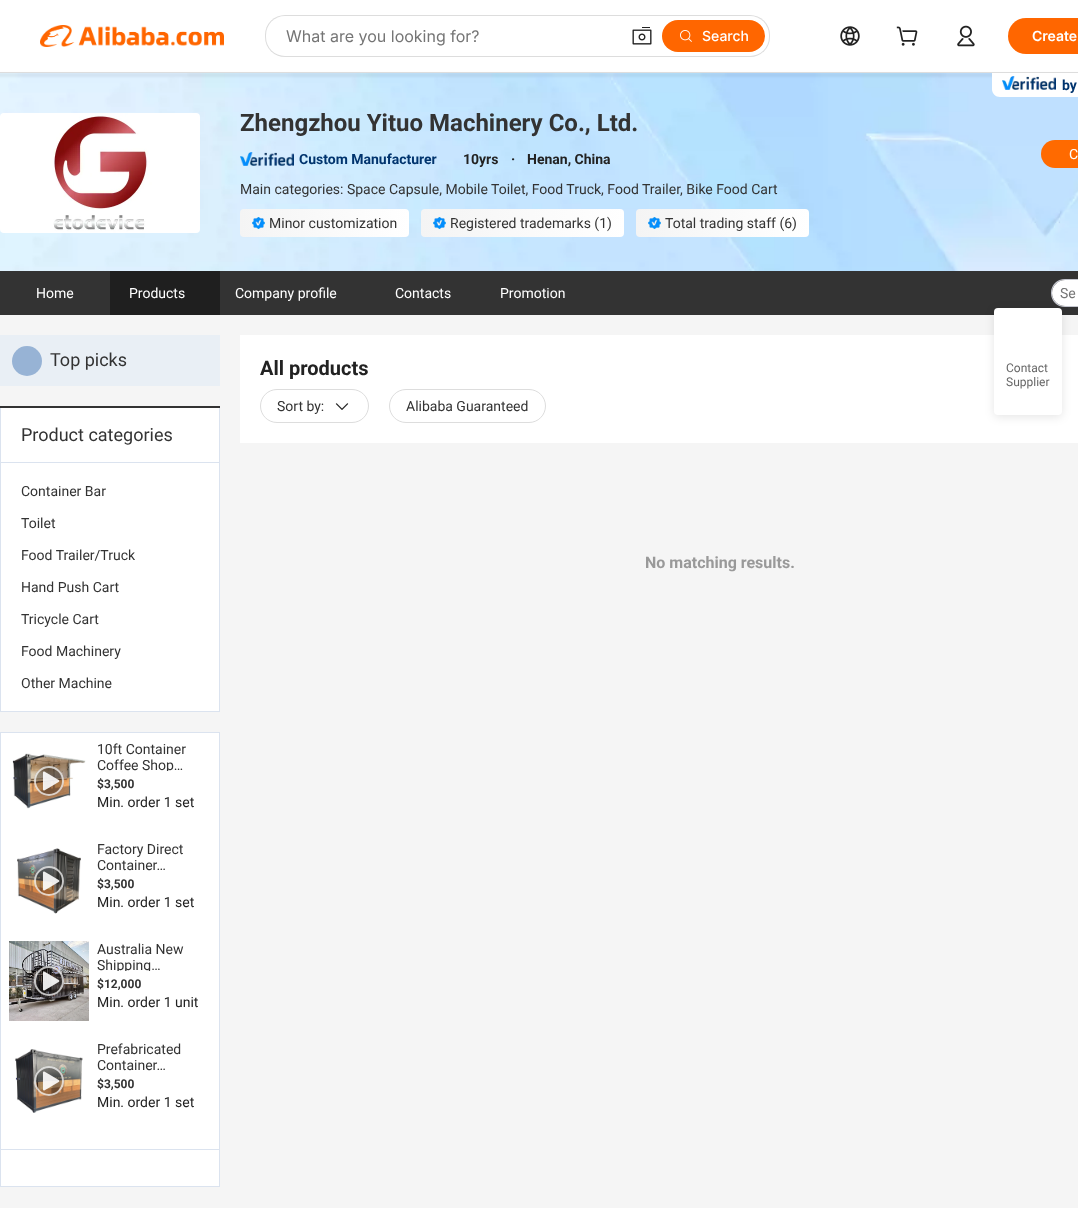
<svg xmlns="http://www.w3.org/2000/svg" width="1078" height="1214">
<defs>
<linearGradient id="g1" gradientUnits="userSpaceOnUse" x1="409" y1="223" x2="240" y2="223"><stop offset="0" stop-color="#fff"/><stop offset="1" stop-color="#f4f4f4"/></linearGradient>
<linearGradient id="g2" gradientUnits="userSpaceOnUse" x1="624" y1="223" x2="421" y2="223"><stop offset="0" stop-color="#fff"/><stop offset="1" stop-color="#f4f4f4"/></linearGradient>
<linearGradient id="g3" gradientUnits="userSpaceOnUse" x1="809" y1="223" x2="636" y2="223"><stop offset="0" stop-color="#fff"/><stop offset="1" stop-color="#f4f4f4"/></linearGradient>
<clipPath id="clip1"><rect x="97" y="741" width="114" height="30"/></clipPath>
<clipPath id="clip2"><rect x="97" y="941" width="114" height="30"/></clipPath>
</defs>
<rect width="100%" height="100%" fill="#fff"/>
<image x="0" y="73" width="1078" height="198" href="media/7.png"/>
<rect x="-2" y="73" width="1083" height="4" fill="#0000000d" filter="blur(1px)"/>
<rect y="72" width="1078" height="1" fill="#ddd"/>
<image x="40" y="25" width="184" height="22" href="media/1.png"/>
<rect x="265" y="15" width="505" height="42" rx="20" fill="#ddd"/>
<rect x="266" y="16" width="503" height="40" rx="19" fill="#fff"/>
<text x="286" y="42" style="font-family:Inter;font-size:16px;fill:#757575">What are you looking for?</text>
<image x="632" y="27" width="20" height="18" href="media/2.png"/>
<rect x="662" y="20" width="103" height="32" rx="16" fill="#f60"/>
<image x="680" y="30" width="12" height="12" href="media/3.png"/>
<text x="702" y="41" style="font-family:Inter;font-size:14px;font-weight:500;fill:#fff">Search</text>
<image x="840" y="26" width="20" height="20" href="media/4.png"/>
<image x="896" y="26" width="22" height="20" href="media/5.png"/>
<image x="957" y="25" width="18" height="22" href="media/6.png"/>
<rect x="1008" y="18" width="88" height="36" rx="18" fill="#f60"/>
<text x="1032" y="41" style="font-family:Inter;font-size:14px;font-weight:600;fill:#fff">Create</text>
<path d="M992 73h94v16c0 4.5-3.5 8-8 8h-78c-4.5 0-8-3.5-8-8z" fill="#fff"/>
<image x="1002" y="76" width="54" height="14" href="media/8.png"/>
<text x="1062" y="90" style="font-family:Roboto;font-size:14px;font-weight:bold;fill:#00346e">by</text>
<image x="0" y="113" width="200" height="120" href="media/9.png"/>
<text x="240" y="131" style="font-family:Roboto;font-size:24px;font-weight:bold;fill:#333">Zhengzhou Yituo Machinery Co., Ltd.</text>
<image x="240" y="152" width="54" height="14" href="media/10.png"/>
<text x="299" y="164" style="font-family:Roboto;font-size:14px;font-weight:bold;fill:#00346e">Custom Manufacturer</text>
<text x="463" y="164" style="font-family:Roboto;font-size:14px;font-weight:bold;fill:#222">10yrs</text>
<text x="511" y="164" style="font-family:Roboto;font-size:14px;font-weight:bold;fill:#222">·</text>
<text x="527" y="164" style="font-family:Roboto;font-size:14px;font-weight:bold;fill:#222">Henan, China</text>
<text x="240" y="194" style="font-family:Roboto;font-size:14px;fill:#333">Main categories: Space Capsule, Mobile Toilet, Food Truck, Food Trailer, Bike Food Cart</text>
<rect x="240" y="209" width="169" height="28" rx="4" fill="url(#g1)"/>
<image x="252" y="217" width="13" height="12" href="media/11.png"/>
<text x="269" y="228" style="font-family:Roboto;font-size:14px;fill:#333">Minor customization</text>
<rect x="421" y="209" width="203" height="28" rx="4" fill="url(#g2)"/>
<image x="433" y="217" width="13" height="12" href="media/12.png"/>
<text x="450" y="228" style="font-family:Roboto;font-size:14px;fill:#333">Registered trademarks (1)</text>
<rect x="636" y="209" width="173" height="28" rx="4" fill="url(#g3)"/>
<image x="648" y="217" width="13" height="12" href="media/13.png"/>
<text x="665" y="228" style="font-family:Roboto;font-size:14px;fill:#333">Total trading staff (6)</text>
<rect x="1041" y="140" width="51" height="28" rx="14" fill="#ff6a00"/>
<text x="1069" y="159" style="font-family:Roboto;font-size:14px;fill:#fff">C</text>
<rect y="271" width="1078" height="44" fill="#333"/>
<text x="36" y="298" style="font-family:Roboto;font-size:14px;fill:#fff">Home</text>
<rect x="110" y="271" width="110" height="44" fill="#1f1f1f"/>
<text x="129" y="298" style="font-family:Roboto;font-size:14px;fill:#fff">Products</text>
<text x="235" y="298" style="font-family:Roboto;font-size:14px;fill:#fff">Company profile</text>
<text x="395" y="298" style="font-family:Roboto;font-size:14px;fill:#fff">Contacts</text>
<text x="500" y="298" style="font-family:Roboto;font-size:14px;fill:#fff">Promotion</text>
<path d="M1065 279h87v28h-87c-8 0-14-6-14-14c0-8 6-14 14-14zm0 1h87v26h-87c-7 0-13-6-13-13c0-7 6-13 13-13z" fill="#c4c6cf" fill-rule="evenodd"/>
<path d="M1065 280h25.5c.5 0 .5 0 .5 .5v25c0 .5 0 .5-.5 .5h-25.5c-7 0-13-6-13-13c0-7 6-13 13-13z" fill="#fff"/>
<text x="1060" y="298" style="font-family:Roboto;font-size:14px;fill:#757575">Se</text>
<rect y="315" width="1078" height="893" fill="#f5f5f5"/>
<rect y="335" width="220" height="51" fill="#e9eff5"/>
<circle cx="27" cy="361" r="15" fill="#97b3d5"/>
<text x="50" y="366" style="font-family:Roboto;font-size:18px;fill:#333">Top picks</text>
<rect x="1" y="408" width="218" height="303" fill="#fff"/>
<rect y="406" width="220" height="2" fill="#333"/>
<rect x="219" y="408" width="1" height="304" fill="#dbe3ef"/>
<rect y="711" width="220" height="1" fill="#dbe3ef"/>
<rect y="408" width="1" height="304" fill="#dbe3ef"/>
<rect x="1" y="462" width="218" height="1" fill="#dbe3ef"/>
<text x="21" y="441" style="font-family:Roboto;font-size:18px;fill:#333">Product categories</text>
<text x="21" y="496" style="font-family:Roboto;font-size:14px;fill:#333">Container Bar</text>
<text x="21" y="528" style="font-family:Roboto;font-size:14px;fill:#333">Toilet</text>
<text x="21" y="560" style="font-family:Roboto;font-size:14px;fill:#333">Food Trailer/Truck</text>
<text x="21" y="592" style="font-family:Roboto;font-size:14px;fill:#333">Hand Push Cart</text>
<text x="21" y="624" style="font-family:Roboto;font-size:14px;fill:#333">Tricycle Cart</text>
<text x="21" y="656" style="font-family:Roboto;font-size:14px;fill:#333">Food Machinery</text>
<text x="21" y="688" style="font-family:Roboto;font-size:14px;fill:#333">Other Machine</text>
<rect x="0.5" y="732.5" width="219" height="454" fill="#fff" stroke="#dbe3ef"/>
<image x="12" y="753" width="74" height="56" href="media/14.png"/>
<circle cx="49" cy="781" r="15" fill="#00000045"/>
<circle cx="49" cy="781" r="14" fill="none" stroke="#ffffffb8" stroke-width="2"/>
<image x="42" y="771" width="18" height="20" href="media/15.png"/>
<text x="97" y="754" style="font-family:Roboto;font-size:14px;fill:#333">10ft Container</text>
<g clip-path="url(#clip1)">
<text x="97" y="770" style="font-family:Roboto;font-size:14px;fill:#333">Coffee Shop…</text>
</g>
<text x="97" y="788" style="font-family:Roboto;font-size:12px;font-weight:bold;fill:#333">$3,500</text>
<text x="97" y="807" style="font-family:Roboto;font-size:14px;fill:#222">Min. order 1 set</text>
<image x="17" y="848" width="64" height="66" href="media/16.png"/>
<circle cx="49" cy="881" r="15" fill="#00000045"/>
<circle cx="49" cy="881" r="14" fill="none" stroke="#ffffffb8" stroke-width="2"/>
<image x="42" y="871" width="18" height="20" href="media/17.png"/>
<text x="97" y="854" style="font-family:Roboto;font-size:14px;fill:#333">Factory Direct</text>
<text x="97" y="870" style="font-family:Roboto;font-size:14px;fill:#333">Container…</text>
<text x="97" y="888" style="font-family:Roboto;font-size:12px;font-weight:bold;fill:#333">$3,500</text>
<text x="97" y="907" style="font-family:Roboto;font-size:14px;fill:#222">Min. order 1 set</text>
<image x="9" y="941" width="80" height="80" href="media/18.png"/>
<circle cx="49" cy="981" r="15" fill="#00000045"/>
<circle cx="49" cy="981" r="14" fill="none" stroke="#ffffffb8" stroke-width="2"/>
<image x="42" y="971" width="18" height="20" href="media/19.png"/>
<text x="97" y="954" style="font-family:Roboto;font-size:14px;fill:#333">Australia New</text>
<g clip-path="url(#clip2)">
<text x="97" y="970" style="font-family:Roboto;font-size:14px;fill:#333">Shipping…</text>
</g>
<text x="97" y="988" style="font-family:Roboto;font-size:12px;font-weight:bold;fill:#333">$12,000</text>
<text x="97" y="1007" style="font-family:Roboto;font-size:14px;fill:#222">Min. order 1 unit</text>
<image x="15" y="1049" width="68" height="64" href="media/20.png"/>
<circle cx="49" cy="1081" r="15" fill="#00000045"/>
<circle cx="49" cy="1081" r="14" fill="none" stroke="#ffffffb8" stroke-width="2"/>
<image x="42" y="1071" width="18" height="20" href="media/21.png"/>
<text x="97" y="1054" style="font-family:Roboto;font-size:14px;fill:#333">Prefabricated</text>
<text x="97" y="1070" style="font-family:Roboto;font-size:14px;fill:#333">Container…</text>
<text x="97" y="1088" style="font-family:Roboto;font-size:12px;font-weight:bold;fill:#333">$3,500</text>
<text x="97" y="1107" style="font-family:Roboto;font-size:14px;fill:#222">Min. order 1 set</text>
<rect x="1" y="1149" width="218" height="1" fill="#dbe3ef"/>
<rect x="240" y="335" width="838" height="108" fill="#fff"/>
<text x="260" y="375" style="font-family:Roboto;font-size:20px;font-weight:bold;fill:#222">All products</text>
<rect x="260.5" y="389.5" width="108" height="33" rx="16.5" fill="none" stroke="#ddd"/>
<text x="277" y="411" style="font-family:Roboto;font-size:14px;fill:#333">Sort by:</text>
<image x="335" y="403" width="14" height="7" href="media/22.png"/>
<rect x="389.5" y="389.5" width="156" height="33" rx="16.5" fill="none" stroke="#ddd"/>
<text x="406" y="411" style="font-family:Roboto;font-size:14px;fill:#333">Alibaba Guaranteed</text>
<text x="645" y="568" style="font-family:Roboto;font-size:16px;font-weight:bold;fill:#999">No matching results.</text>
<rect x="994" y="310" width="68" height="107" rx="4" fill="#0000001a" filter="blur(5px)"/>
<rect x="994" y="308" width="68" height="107" rx="4" fill="#fff"/>
<text x="1006" y="372" style="font-family:Roboto;font-size:12px;fill:#666">Contact</text>
<text x="1006" y="386" style="font-family:Roboto;font-size:12px;fill:#666">Supplier</text>
</svg>
